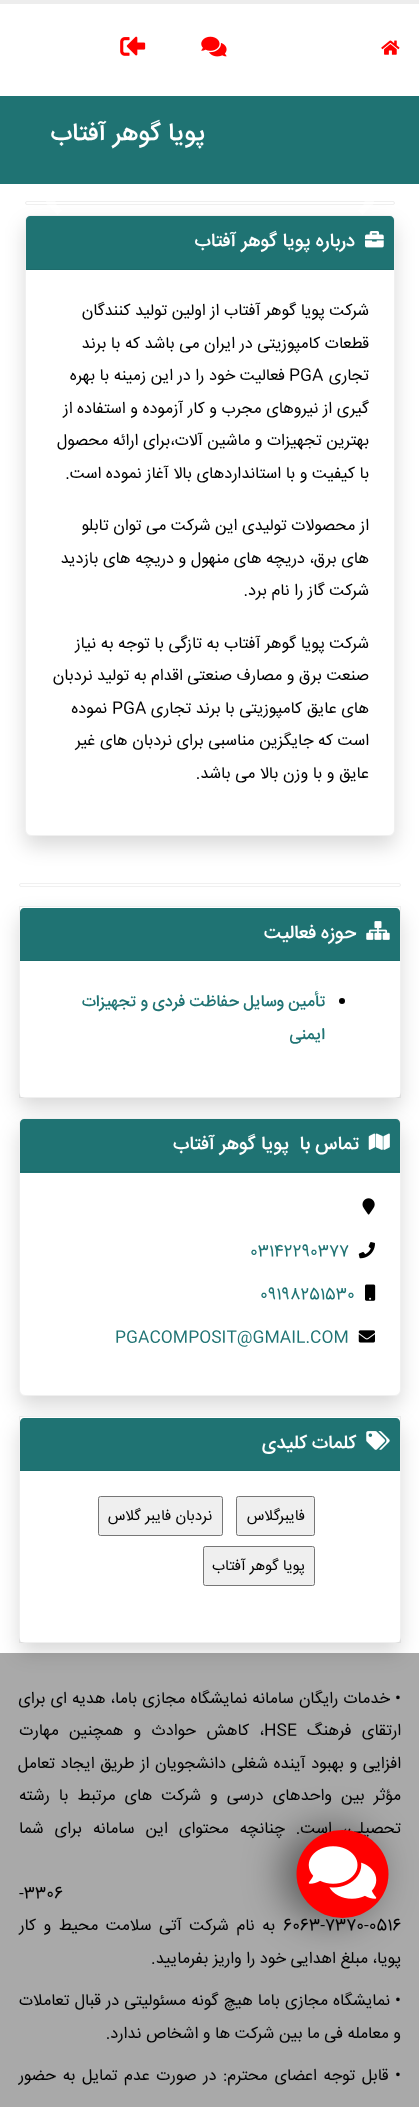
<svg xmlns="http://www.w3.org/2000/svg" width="419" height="2107">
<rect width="100%" height="100%" fill="#fff"/>
<rect width="419" height="4" fill="#ededed"/>
<image x="381" y="40" width="19" height="15" href="media/1.png"/>
<image x="201" y="36" width="26" height="21" href="media/2.png"/>
<image x="120" y="36" width="26" height="20" href="media/3.png"/>
<rect y="96" width="419" height="88" fill="#1f7373"/>
<text x="205" y="140" style="font-family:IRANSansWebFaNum;font-size:25px;font-weight:500;direction:rtl;fill:#fff">پویا گوهر آفتاب</text>
<rect x="25.5" y="201.5" width="369" height="3" rx="1.5" fill="none" stroke="#efefef"/>
<rect x="25" y="225" width="370" height="621" rx="6" fill="#00000026" filter="blur(10px)"/>
<path d="M362.5 190l-5 4.5l8 8l-8 8l5 4.5l12.5-12.5z" fill="#ffffff80"/>
<path d="M57.5 190l-12.5 12.5l12.5 12.5l5-4.5l-8-8l8-8z" fill="#ffffff80"/>
<rect x="25.5" y="215.5" width="369" height="620" rx="5.5" fill="#fff" stroke="#f0f0f0"/>
<path d="M30 216h360c2 0 4 2 4 4v50h-368v-50c0-2 2-4 4-4z" fill="#1f7373"/>
<rect x="26" y="269" width="368" height="1" fill="#1d6c6c"/>
<image x="365" y="231" width="19" height="17" href="media/4.png"/>
<text x="355" y="246" style="font-family:IRANSansWebFaNum;font-size:18.75px;font-weight:500;direction:rtl;fill:#fff">درباره پویا گوهر آفتاب</text>
<text x="369" y="315" style="font-family:IRANSansWebFaNum;font-size:16.25px;direction:rtl;fill:#000">شرکت پویا گوهر آفتاب از اولین تولید کنندگان</text>
<text x="369" y="348" style="font-family:IRANSansWebFaNum;font-size:16.25px;direction:rtl;fill:#000">قطعات کامپوزیتی در ایران می باشد که با برند</text>
<text x="369" y="380" style="font-family:IRANSansWebFaNum;font-size:16.25px;direction:rtl;fill:#000">تجاری</text>
<text x="289" y="380" style="font-family:IRANSansWebFaNum;font-size:16.25px;fill:#000">PGA</text>
<text x="285" y="380" style="font-family:IRANSansWebFaNum;font-size:16.25px;direction:rtl;fill:#000">فعالیت خود را در این زمینه با بهره</text>
<text x="369" y="413" style="font-family:IRANSansWebFaNum;font-size:16.25px;direction:rtl;fill:#000">گیری از نیروهای مجرب و کار آزموده و استفاده از</text>
<text x="369" y="445" style="font-family:IRANSansWebFaNum;font-size:16.25px;direction:rtl;fill:#000">بهترین تجهیزات و ماشین آلات،برای ارائه محصول</text>
<text x="369" y="478" style="font-family:IRANSansWebFaNum;font-size:16.25px;direction:rtl;fill:#000">با کیفیت و با استانداردهای بالا آغاز نموده است.</text>
<text x="369" y="530" style="font-family:IRANSansWebFaNum;font-size:16.25px;direction:rtl;fill:#000">از محصولات تولیدی این شرکت می توان تابلو</text>
<text x="369" y="563" style="font-family:IRANSansWebFaNum;font-size:16.25px;direction:rtl;fill:#000">های برق، دریچه های منهول و دریچه های بازدید</text>
<text x="369" y="595" style="font-family:IRANSansWebFaNum;font-size:16.25px;direction:rtl;fill:#000">شرکت گاز را نام برد.</text>
<text x="369" y="648" style="font-family:IRANSansWebFaNum;font-size:16.25px;direction:rtl;fill:#000">شرکت پویا گوهر آفتاب به تازگی با توجه به نیاز</text>
<text x="369" y="680" style="font-family:IRANSansWebFaNum;font-size:16.25px;direction:rtl;fill:#000">صنعت برق و مصارف صنعتی اقدام به تولید نردبان</text>
<text x="369" y="713" style="font-family:IRANSansWebFaNum;font-size:16.25px;direction:rtl;fill:#000">های عایق کامپوزیتی با برند تجاری</text>
<text x="112" y="713" style="font-family:IRANSansWebFaNum;font-size:16.25px;fill:#000">PGA</text>
<text x="107" y="713" style="font-family:IRANSansWebFaNum;font-size:16.25px;direction:rtl;fill:#000">نموده</text>
<text x="369" y="745" style="font-family:IRANSansWebFaNum;font-size:16.25px;direction:rtl;fill:#000">است که جایگزین مناسبی برای نردبان های غیر</text>
<text x="369" y="778" style="font-family:IRANSansWebFaNum;font-size:16.25px;direction:rtl;fill:#000">عایق و با وزن بالا می باشد.</text>
<rect x="19.5" y="883.5" width="381" height="3" rx="1.5" fill="none" stroke="#f0f0f0"/>
<rect x="19" y="916" width="382" height="192" rx="6" fill="#00000026" filter="blur(10px)"/>
<rect x="19" y="906" width="382" height="192" rx="6" fill="#fff"/>
<rect x="19.5" y="906.5" width="381" height="191" fill="none" stroke="#0000000f"/>
<path d="M24 908h372c2 0 4 2 4 4v49h-380v-49c0-2 2-4 4-4z" fill="#1f7373"/>
<rect x="20" y="960" width="380" height="1" fill="#1d6c6c"/>
<image x="366" y="921" width="24" height="19" href="media/5.png"/>
<text x="356" y="938" style="font-family:IRANSansWebFaNum;font-size:18.75px;font-weight:500;direction:rtl;fill:#fff">حوزه فعالیت</text>
<circle cx="342" cy="1001" r="3" fill="#000"/>
<text x="325" y="1006" style="font-family:IRANSansWebFaNum;font-size:16.25px;font-weight:500;direction:rtl;fill:#1f7373">تأمین وسایل حفاظت فردی و تجهیزات</text>
<text x="325" y="1039" style="font-family:IRANSansWebFaNum;font-size:16.25px;font-weight:500;direction:rtl;fill:#1f7373">ایمنی</text>
<rect x="19" y="1128" width="382" height="278" rx="6" fill="#00000026" filter="blur(10px)"/>
<rect x="19.5" y="1118.5" width="381" height="277" rx="5.5" fill="#fff" stroke="#f0f0f0"/>
<path d="M24 1119h372c2 0 4 2 4 4v50h-380v-50c0-2 2-4 4-4z" fill="#1f7373"/>
<rect x="20" y="1171" width="380" height="1" fill="#1d6c6c"/>
<image x="368" y="1133" width="22" height="17" href="media/6.png"/>
<text x="359" y="1149" style="font-family:IRANSansWebFaNum;font-size:18.75px;font-weight:500;direction:rtl;fill:#fff" xml:space="preserve">تماس با  پویا گوهر آفتاب</text>
<image x="362" y="1198" width="13" height="17" href="media/7.png"/>
<image x="358" y="1242" width="17" height="17" href="media/8.png"/>
<text x="250" y="1256" style="font-family:IRANSansWebFaNum;font-size:16.25px;fill:#1f7373">03142290377</text>
<image x="365" y="1284" width="11" height="17" href="media/9.png"/>
<text x="260" y="1299" style="font-family:IRANSansWebFaNum;font-size:16.25px;fill:#1f7373">09198251530</text>
<image x="358" y="1330" width="17" height="13" href="media/10.png"/>
<text x="115" y="1342" style="font-family:IRANSansWebFaNum;font-size:16.25px;fill:#1f7373">PGACOMPOSIT@GMAIL.COM</text>
<rect y="1653" width="419" height="454" fill="#a9a9a9"/>
<rect x="19" y="1426" width="382" height="227" rx="6" fill="#00000026" filter="blur(10px)"/>
<rect x="19" y="1416" width="382" height="227" rx="6" fill="#fff"/>
<rect x="19.5" y="1416.5" width="381" height="226" fill="none" stroke="#0000000f"/>
<path d="M24 1418h372c2 0 4 2 4 4v49h-380v-49c0-2 2-4 4-4z" fill="#1f7373"/>
<rect x="20" y="1470" width="380" height="1" fill="#1d6c6c"/>
<image x="366" y="1431" width="24" height="19" href="media/11.png"/>
<text x="356" y="1448" style="font-family:IRANSansWebFaNum;font-size:18.75px;font-weight:500;direction:rtl;fill:#fff">کلمات کلیدی</text>
<rect x="236" y="1496" width="79" height="40" fill="#fafafa"/>
<rect x="236.5" y="1496.5" width="78" height="39" rx="2" fill="#efefef" stroke="#767676"/>
<text x="305" y="1520" style="font-family:IRANSansWebFaNum;font-size:15px;direction:rtl;fill:#000">فایبرگلاس</text>
<rect x="98" y="1496" width="125" height="40" fill="#fafafa"/>
<rect x="98.5" y="1496.5" width="124" height="39" rx="2" fill="#efefef" stroke="#767676"/>
<text x="212" y="1520" style="font-family:IRANSansWebFaNum;font-size:15px;direction:rtl;fill:#000">نردبان فایبر گلاس</text>
<rect x="203" y="1546" width="112" height="40" fill="#fafafa"/>
<rect x="203.5" y="1546.5" width="111" height="39" rx="2" fill="#efefef" stroke="#767676"/>
<text x="305" y="1570" style="font-family:IRANSansWebFaNum;font-size:15px;direction:rtl;fill:#000">پویا گوهر آفتاب</text>
<text x="401" y="1703" word-spacing="0.5" style="font-family:IRANSansWebFaNum;font-size:16.25px;direction:rtl;fill:#000">• خدمات رایگان سامانه نمایشگاه مجازی باما، هدیه ای برای</text>
<text x="401" y="1735" word-spacing="5.75" style="font-family:IRANSansWebFaNum;font-size:16.25px;direction:rtl;fill:#000">ارتقای فرهنگ</text>
<text x="264" y="1735" style="font-family:IRANSansWebFaNum;font-size:16.25px;fill:#000">HSE</text>
<text x="264" y="1735" word-spacing="5.75" style="font-family:IRANSansWebFaNum;font-size:16.25px;direction:rtl;fill:#000">، کاهش حوادث و همچنین مهارت</text>
<text x="401" y="1768" word-spacing="1" style="font-family:IRANSansWebFaNum;font-size:16.25px;direction:rtl;fill:#000">افزایی و بهبود آینده شغلی دانشجویان از طریق ایجاد تعامل</text>
<text x="401" y="1800" word-spacing="4.5" style="font-family:IRANSansWebFaNum;font-size:16.25px;direction:rtl;fill:#000">مؤثر بین واحدهای درسی و شرکت های مرتبط با رشته</text>
<text x="401" y="1833" word-spacing="6.5" style="font-family:IRANSansWebFaNum;font-size:16.25px;direction:rtl;fill:#000">تحصیلی، است. چنانچه محتوای این سامانه برای شما</text>
<text x="19" y="1898" style="font-family:IRANSansWebFaNum;font-size:16.25px;fill:#000">-3306</text>
<text x="283" y="1930" style="font-family:IRANSansWebFaNum;font-size:16.25px;fill:#000">6063-7370-0516</text>
<text x="275" y="1930" word-spacing="3" style="font-family:IRANSansWebFaNum;font-size:16.25px;direction:rtl;fill:#000">به نام شرکت آتی سلامت محیط و کار</text>
<text x="401" y="1963" style="font-family:IRANSansWebFaNum;font-size:16.25px;direction:rtl;fill:#000">پویا، مبلغ اهدایی خود را واریز بفرمایید.</text>
<text x="401" y="2005" word-spacing="0.5" style="font-family:IRANSansWebFaNum;font-size:16.25px;direction:rtl;fill:#000">• نمایشگاه مجازی باما هیچ گونه مسئولیتی در قبال تعاملات</text>
<text x="401" y="2038" style="font-family:IRANSansWebFaNum;font-size:16.25px;direction:rtl;fill:#000">و معامله فی ما بین شرکت ها و اشخاص ندارد.</text>
<text x="401" y="2080" word-spacing="2" style="font-family:IRANSansWebFaNum;font-size:16.25px;direction:rtl;fill:#000">• قابل توجه اعضای محترم: در صورت عدم تمایل به حضور</text>
<rect x="284" y="1830" width="92" height="88" rx="44" fill="#00000080" filter="blur(20px)"/>
<ellipse cx="342.5" cy="1874" rx="46" ry="44" fill="#f00"/>
<image x="308" y="1846" width="69" height="53" href="media/12.png"/>
</svg>
